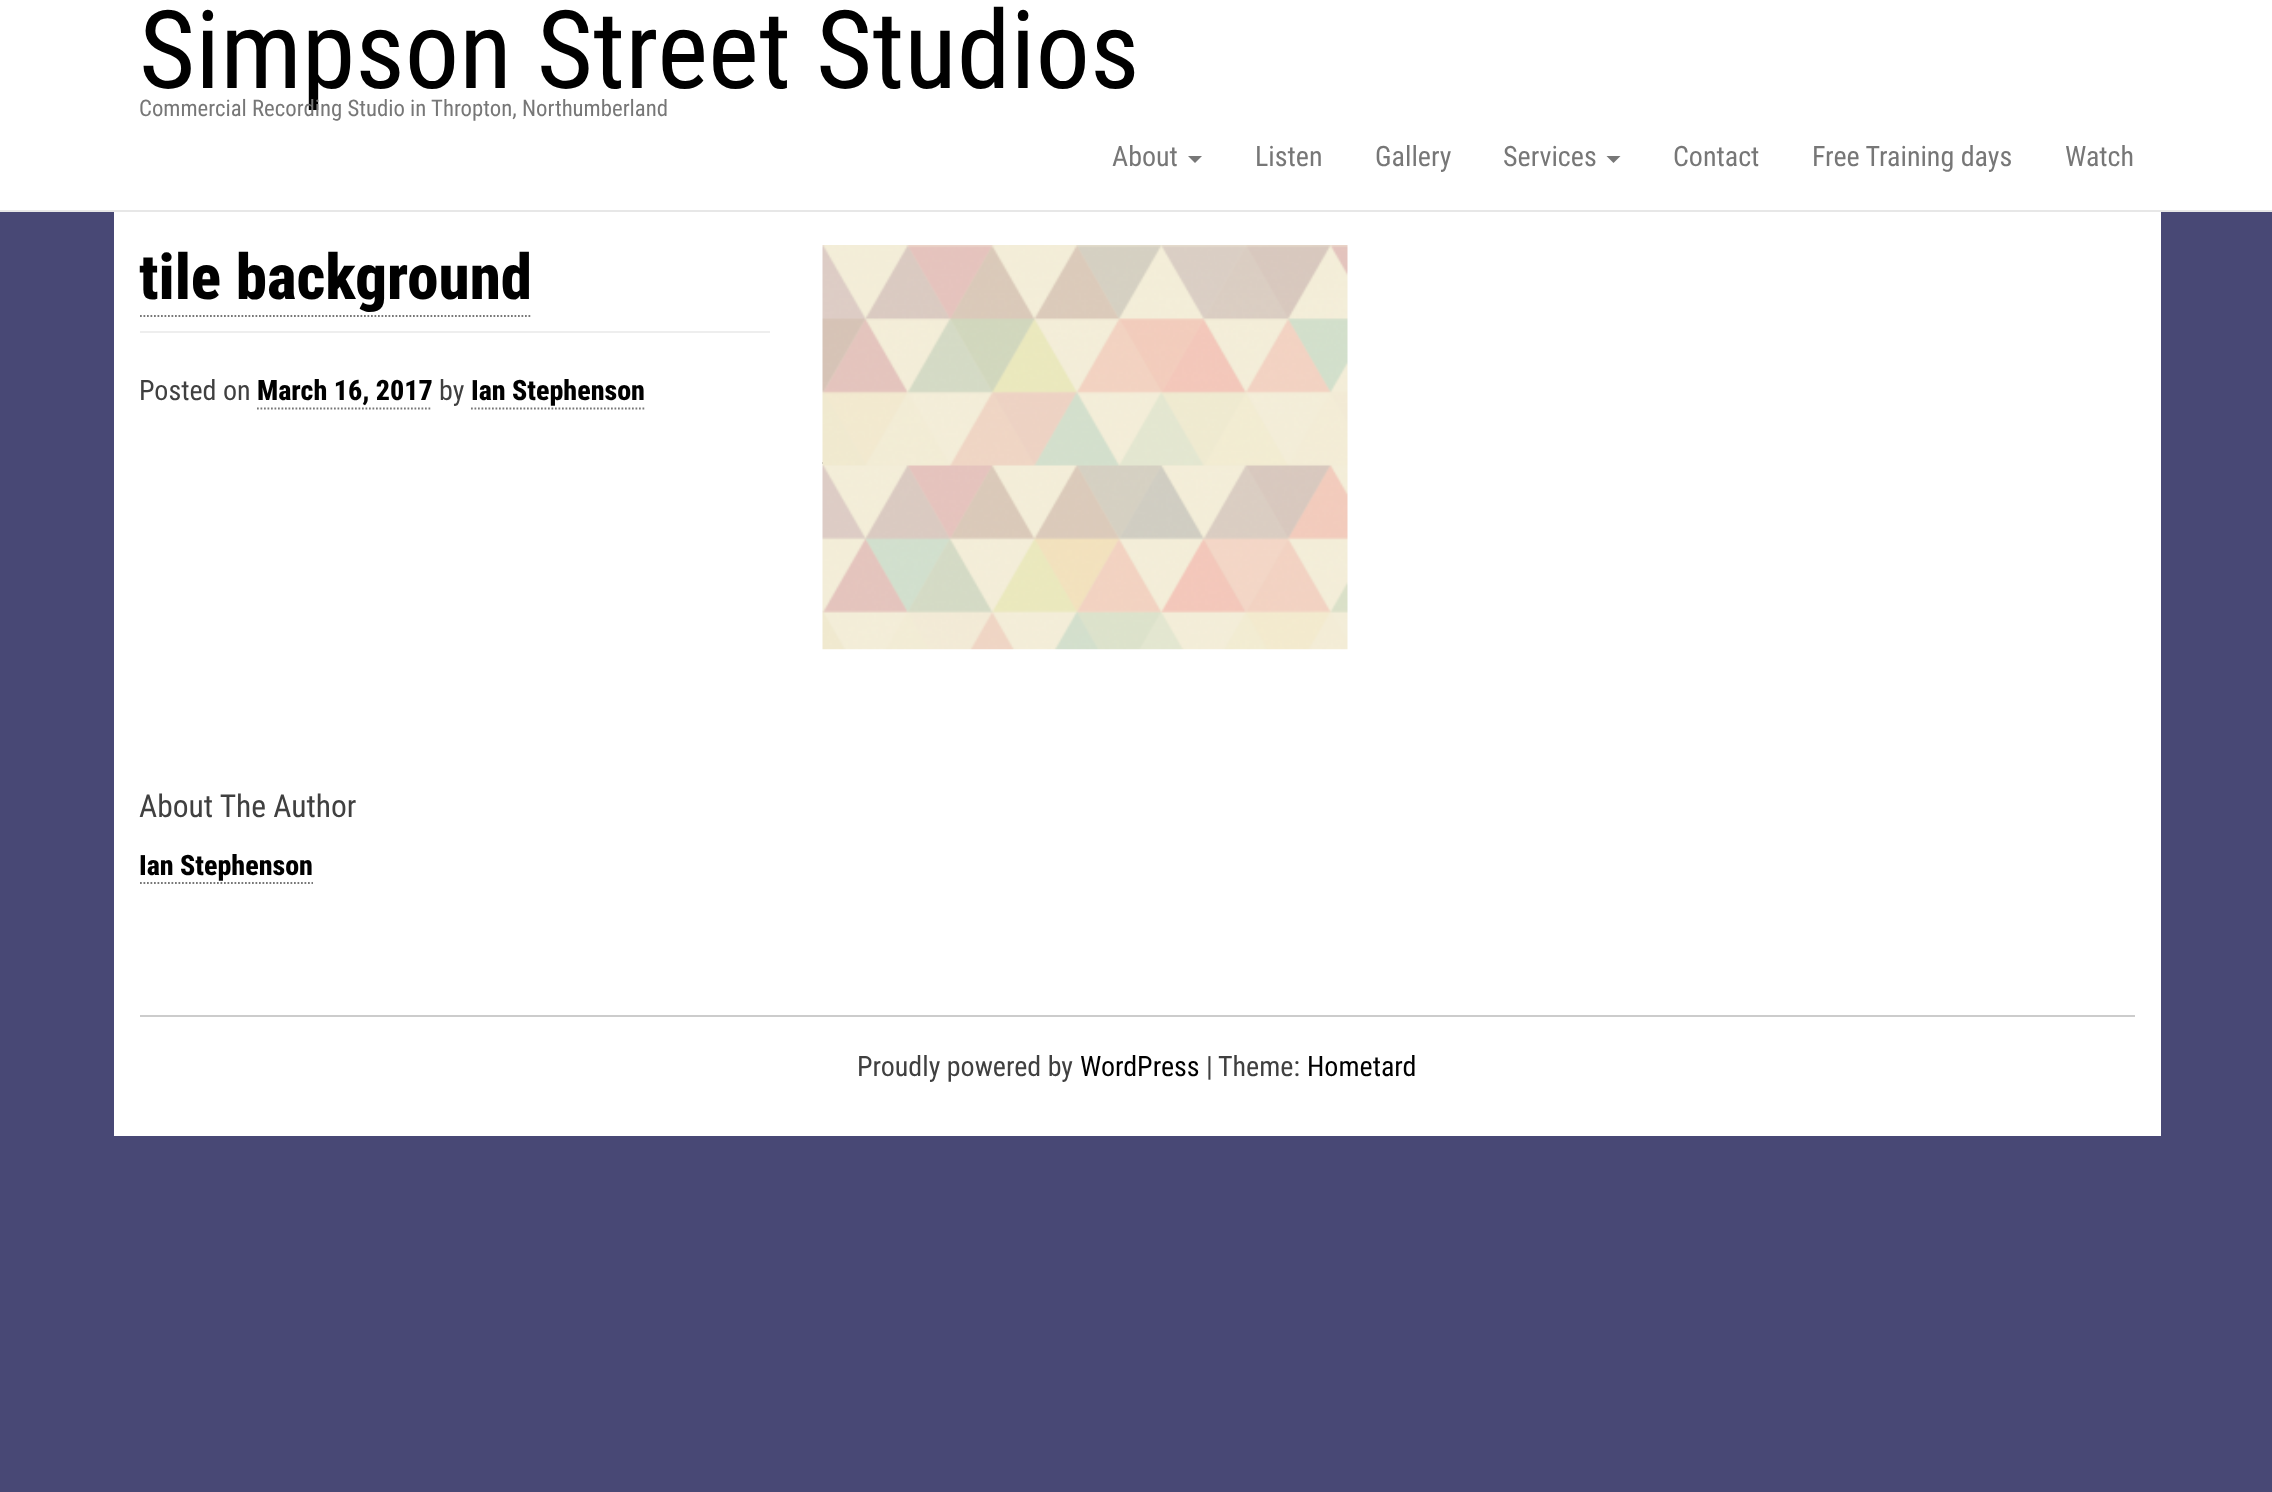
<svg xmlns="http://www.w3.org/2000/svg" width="2272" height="1492">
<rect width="100%" height="100%" fill="#484875"/>
<rect width="2272" height="210" fill="#fff"/>
<rect y="210" width="2272" height="2" fill="#e7e7e7"/>
<text x="139" y="88" style="font-family:Roboto Condensed;font-size:108.5px;fill:#000">Simpson Street Studios</text>
<text x="139" y="116" style="font-family:Roboto Condensed;font-size:22.75px;fill:#777">Commercial Recording Studio in Thropton, Northumberland</text>
<text x="1112" y="166" style="font-family:Roboto Condensed;font-size:28px;fill:#777">About</text>
<path d="M1188 156h14l-7 7z" fill="#777"/>
<text x="1255" y="166" style="font-family:Roboto Condensed;font-size:28px;fill:#777">Listen</text>
<text x="1375" y="166" style="font-family:Roboto Condensed;font-size:28px;fill:#777">Gallery</text>
<text x="1503" y="166" style="font-family:Roboto Condensed;font-size:28px;fill:#777">Services</text>
<path d="M1606.5 156h14l-7 7z" fill="#777"/>
<text x="1673" y="166" style="font-family:Roboto Condensed;font-size:28px;fill:#777">Contact</text>
<text x="1812" y="166" style="font-family:Roboto Condensed;font-size:28px;fill:#777">Free Training days</text>
<text x="2065" y="166" style="font-family:Roboto Condensed;font-size:28px;fill:#777">Watch</text>
<rect x="114" y="212" width="2047" height="924" fill="#fff"/>
<rect x="140" y="331" width="630" height="2" fill="#eee"/>
<text x="139" y="299" style="font-family:Roboto Condensed;font-size:63px;font-weight:800;fill:#000">tile background</text>
<path d="M140 316h392" fill="none" stroke="#777" stroke-width="1.8" stroke-dasharray="1.75 1.75"/>
<text x="139" y="400" style="font-family:Roboto Condensed;font-size:28px;fill:#404040">Posted on</text>
<text x="257" y="400" style="font-family:Roboto Condensed;font-size:28px;font-weight:800;fill:#000">March 16, 2017</text>
<path d="M257 408.5h175" fill="none" stroke="#777" stroke-width="1.8" stroke-dasharray="1.75 1.75"/>
<text x="439" y="400" style="font-family:Roboto Condensed;font-size:28px;fill:#404040">by</text>
<text x="471" y="400" style="font-family:Roboto Condensed;font-size:28px;font-weight:800;fill:#000">Ian Stephenson</text>
<path d="M471 408.5h175" fill="none" stroke="#777" stroke-width="1.8" stroke-dasharray="1.75 1.75"/>
<path d="M822.5 463h525" fill="none" stroke="#777" stroke-width="1.8" stroke-dasharray="1.75 1.75"/>
<image x="822" y="245" width="526" height="405" href="media/1.png"/>
<text x="139" y="817" style="font-family:Roboto Condensed;font-size:31.5px;fill:#404040">About The Author</text>
<text x="139" y="875" style="font-family:Roboto Condensed;font-size:28px;font-weight:800;fill:#000">Ian Stephenson</text>
<path d="M140 883h173" fill="none" stroke="#777" stroke-width="1.8" stroke-dasharray="1.75 1.75"/>
<rect x="140" y="1015" width="1995" height="2" fill="#ccc"/>
<text x="857" y="1076" style="font-family:Roboto Condensed;font-size:28px;fill:#404040">Proudly powered by</text>
<text x="1080" y="1076" style="font-family:Roboto Condensed;font-size:28px;fill:#000">WordPress</text>
<text x="1206" y="1076" style="font-family:Roboto Condensed;font-size:28px;fill:#404040">|</text>
<text x="1218" y="1076" style="font-family:Roboto Condensed;font-size:28px;fill:#404040">Theme:</text>
<text x="1307" y="1076" style="font-family:Roboto Condensed;font-size:28px;fill:#000">Hometard</text>
</svg>
